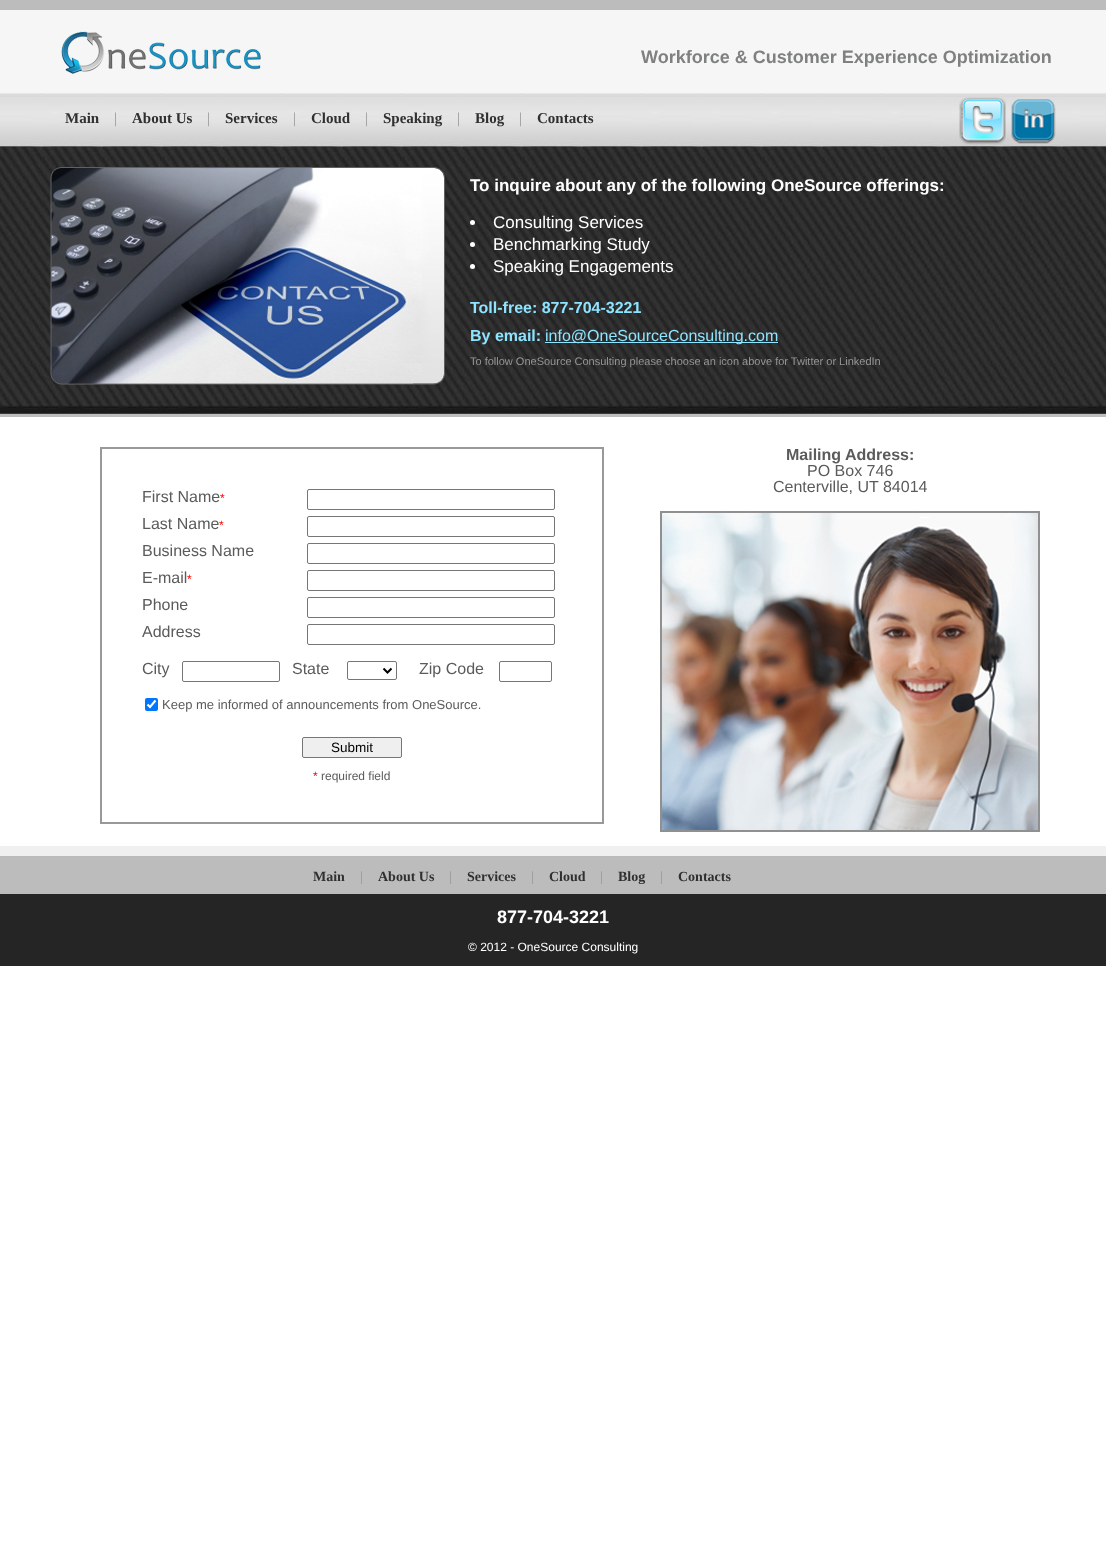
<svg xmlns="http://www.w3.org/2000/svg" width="1106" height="1556">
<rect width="100%" height="100%" fill="#fff"/>
<image x="0" y="10" width="1106" height="407" href="media/1.png"/>
<rect width="1106" height="10" fill="#bdbcbc"/>
<image x="0" y="846" width="1106" height="120" href="media/2.png"/>
<image x="61" y="31" width="200" height="43" href="media/3.png"/>
<text x="641" y="63" style="font-family:Liberation Sans;font-size:18px;font-weight:bold;fill:#7f8080">Workforce &amp; Customer Experience Optimization</text>
<text x="65" y="123" style="font-family:Liberation Serif;font-size:15px;font-weight:bold;fill:#303030">Main</text>
<text x="114" y="123" style="font-family:Liberation Serif;font-size:15px;fill:#969595">|</text>
<text x="132" y="123" style="font-family:Liberation Serif;font-size:15px;font-weight:bold;fill:#303030">About Us</text>
<text x="207" y="123" style="font-family:Liberation Serif;font-size:15px;fill:#969595">|</text>
<text x="225" y="123" style="font-family:Liberation Serif;font-size:15px;font-weight:bold;fill:#303030">Services</text>
<text x="293" y="123" style="font-family:Liberation Serif;font-size:15px;fill:#969595">|</text>
<text x="311" y="123" style="font-family:Liberation Serif;font-size:15px;font-weight:bold;fill:#303030">Cloud</text>
<text x="365" y="123" style="font-family:Liberation Serif;font-size:15px;fill:#969595">|</text>
<text x="383" y="123" style="font-family:Liberation Serif;font-size:15px;font-weight:bold;fill:#303030">Speaking</text>
<text x="457" y="123" style="font-family:Liberation Serif;font-size:15px;fill:#969595">|</text>
<text x="475" y="123" style="font-family:Liberation Serif;font-size:15px;font-weight:bold;fill:#303030">Blog</text>
<text x="519" y="123" style="font-family:Liberation Serif;font-size:15px;fill:#969595">|</text>
<text x="537" y="123" style="font-family:Liberation Serif;font-size:15px;font-weight:bold;fill:#303030">Contacts</text>
<image x="959" y="97" width="47" height="48" href="media/4.png"/>
<image x="1011" y="99" width="45" height="45" href="media/5.png"/>
<image x="50" y="167" width="395" height="218" href="media/6.png"/>
<text x="470" y="191" style="font-family:Liberation Sans;font-size:17px;font-weight:bold;fill:#fff">To inquire about any of the following OneSource offerings:</text>
<circle cx="472.5" cy="222.5" r="2.5" fill="#fff"/>
<text x="493" y="228" style="font-family:Liberation Sans;font-size:17px;fill:#fff">Consulting Services</text>
<circle cx="472.5" cy="244.5" r="2.5" fill="#fff"/>
<text x="493" y="250" style="font-family:Liberation Sans;font-size:17px;fill:#fff">Benchmarking Study</text>
<circle cx="472.5" cy="266.5" r="2.5" fill="#fff"/>
<text x="493" y="272" style="font-family:Liberation Sans;font-size:17px;fill:#fff">Speaking Engagements</text>
<text x="470" y="313" style="font-family:Liberation Sans;font-size:16px;font-weight:bold;fill:#8ee3fe">Toll-free: 877-704-3221</text>
<text x="470" y="341" style="font-family:Liberation Sans;font-size:16px;font-weight:bold;fill:#8ee3fe">By email:</text>
<rect x="545" y="342" width="233" height="1" fill="#8ee3fe"/>
<text x="545" y="341" style="font-family:Liberation Sans;font-size:16px;fill:#8ee3fe">info@OneSourceConsulting.com</text>
<text x="470" y="365" style="font-family:Liberation Sans;font-size:11px;fill:#969595">To follow OneSource Consulting please choose an icon above for Twitter or LinkedIn</text>
<text x="786" y="460" style="font-family:Liberation Sans;font-size:16px;font-weight:bold;fill:#5c5b5b">Mailing Address:</text>
<text x="807" y="476" style="font-family:Liberation Sans;font-size:16px;fill:#5c5b5b">PO Box 746</text>
<text x="773" y="492" style="font-family:Liberation Sans;font-size:16px;fill:#5c5b5b">Centerville, UT 84014</text>
<image x="660" y="511" width="380" height="321" href="media/7.png"/>
<rect x="101" y="448" width="502" height="375" fill="none" stroke="#999" stroke-width="2"/>
<text x="142" y="502" style="font-family:Liberation Sans;font-size:16px;fill:#5c5b5b">First Name</text>
<text x="220" y="502" style="font-family:Liberation Sans;font-size:12px;fill:#f00">*</text>
<rect x="307.5" y="489.5" width="247" height="20" rx="1.5" fill="none" stroke="#767676"/>
<text x="142" y="529" style="font-family:Liberation Sans;font-size:16px;fill:#5c5b5b">Last Name</text>
<text x="219" y="529" style="font-family:Liberation Sans;font-size:12px;fill:#f00">*</text>
<rect x="307.5" y="516.5" width="247" height="20" rx="1.5" fill="none" stroke="#767676"/>
<text x="142" y="556" style="font-family:Liberation Sans;font-size:16px;fill:#5c5b5b">Business Name</text>
<rect x="307.5" y="543.5" width="247" height="20" rx="1.5" fill="none" stroke="#767676"/>
<text x="142" y="583" style="font-family:Liberation Sans;font-size:16px;fill:#5c5b5b">E-mail</text>
<text x="187" y="583" style="font-family:Liberation Sans;font-size:12px;fill:#f00">*</text>
<rect x="307.5" y="570.5" width="247" height="20" rx="1.5" fill="none" stroke="#767676"/>
<text x="142" y="610" style="font-family:Liberation Sans;font-size:16px;fill:#5c5b5b">Phone</text>
<rect x="307.5" y="597.5" width="247" height="20" rx="1.5" fill="none" stroke="#767676"/>
<text x="142" y="637" style="font-family:Liberation Sans;font-size:16px;fill:#5c5b5b">Address</text>
<rect x="307.5" y="624.5" width="247" height="20" rx="1.5" fill="none" stroke="#767676"/>
<text x="142" y="674" style="font-family:Liberation Sans;font-size:16px;fill:#5c5b5b">City</text>
<rect x="182.5" y="661.5" width="97" height="20" rx="1.5" fill="none" stroke="#767676"/>
<text x="292" y="674" style="font-family:Liberation Sans;font-size:16px;fill:#5c5b5b">State</text>
<rect x="347.5" y="661.5" width="49" height="18" rx="1.5" fill="none" stroke="#767676"/>
<path d="M383.5 668.5l4 4l4-4" fill="none" stroke="#000" stroke-width="2"/>
<text x="419" y="674" style="font-family:Liberation Sans;font-size:16px;fill:#5c5b5b">Zip Code</text>
<rect x="499.5" y="661.5" width="52" height="20" rx="1.5" fill="none" stroke="#767676"/>
<rect x="145" y="698" width="13" height="13" rx="2" fill="#0075ff"/>
<path d="M147.5 704.5l2.5 2.5l5.5-6.5" fill="none" stroke="#fff" stroke-width="2.1"/>
<text x="162" y="709" style="font-family:Liberation Sans;font-size:13px;fill:#5c5b5b">Keep me informed of announcements from OneSource.</text>
<rect x="302.5" y="737.5" width="99" height="20" rx="1.5" fill="#efefef" stroke="#767676"/>
<text x="331" y="752" style="font-family:Liberation Sans;font-size:13.5px;fill:#000">Submit</text>
<text x="313" y="780" style="font-family:Liberation Sans;font-size:12px;fill:#f00">*</text>
<text x="321" y="780" style="font-family:Liberation Sans;font-size:12px;fill:#5c5b5b">required field</text>
<text x="313" y="881" style="font-family:Liberation Serif;font-size:14px;font-weight:bold;fill:#303030">Main</text>
<text x="360" y="881" style="font-family:Liberation Serif;font-size:14px;fill:#969595">|</text>
<text x="378" y="881" style="font-family:Liberation Serif;font-size:14px;font-weight:bold;fill:#303030">About Us</text>
<text x="449" y="881" style="font-family:Liberation Serif;font-size:14px;fill:#969595">|</text>
<text x="467" y="881" style="font-family:Liberation Serif;font-size:14px;font-weight:bold;fill:#303030">Services</text>
<text x="531" y="881" style="font-family:Liberation Serif;font-size:14px;fill:#969595">|</text>
<text x="549" y="881" style="font-family:Liberation Serif;font-size:14px;font-weight:bold;fill:#303030">Cloud</text>
<text x="600" y="881" style="font-family:Liberation Serif;font-size:14px;fill:#969595">|</text>
<text x="618" y="881" style="font-family:Liberation Serif;font-size:14px;font-weight:bold;fill:#303030">Blog</text>
<text x="660" y="881" style="font-family:Liberation Serif;font-size:14px;fill:#969595">|</text>
<text x="678" y="881" style="font-family:Liberation Serif;font-size:14px;font-weight:bold;fill:#303030">Contacts</text>
<text x="497" y="923" style="font-family:Liberation Sans;font-size:18px;font-weight:bold;fill:#fff">877-704-3221</text>
<text x="468" y="951" style="font-family:Liberation Sans;font-size:12px;fill:#fff">© 2012 - OneSource Consulting</text>
</svg>
